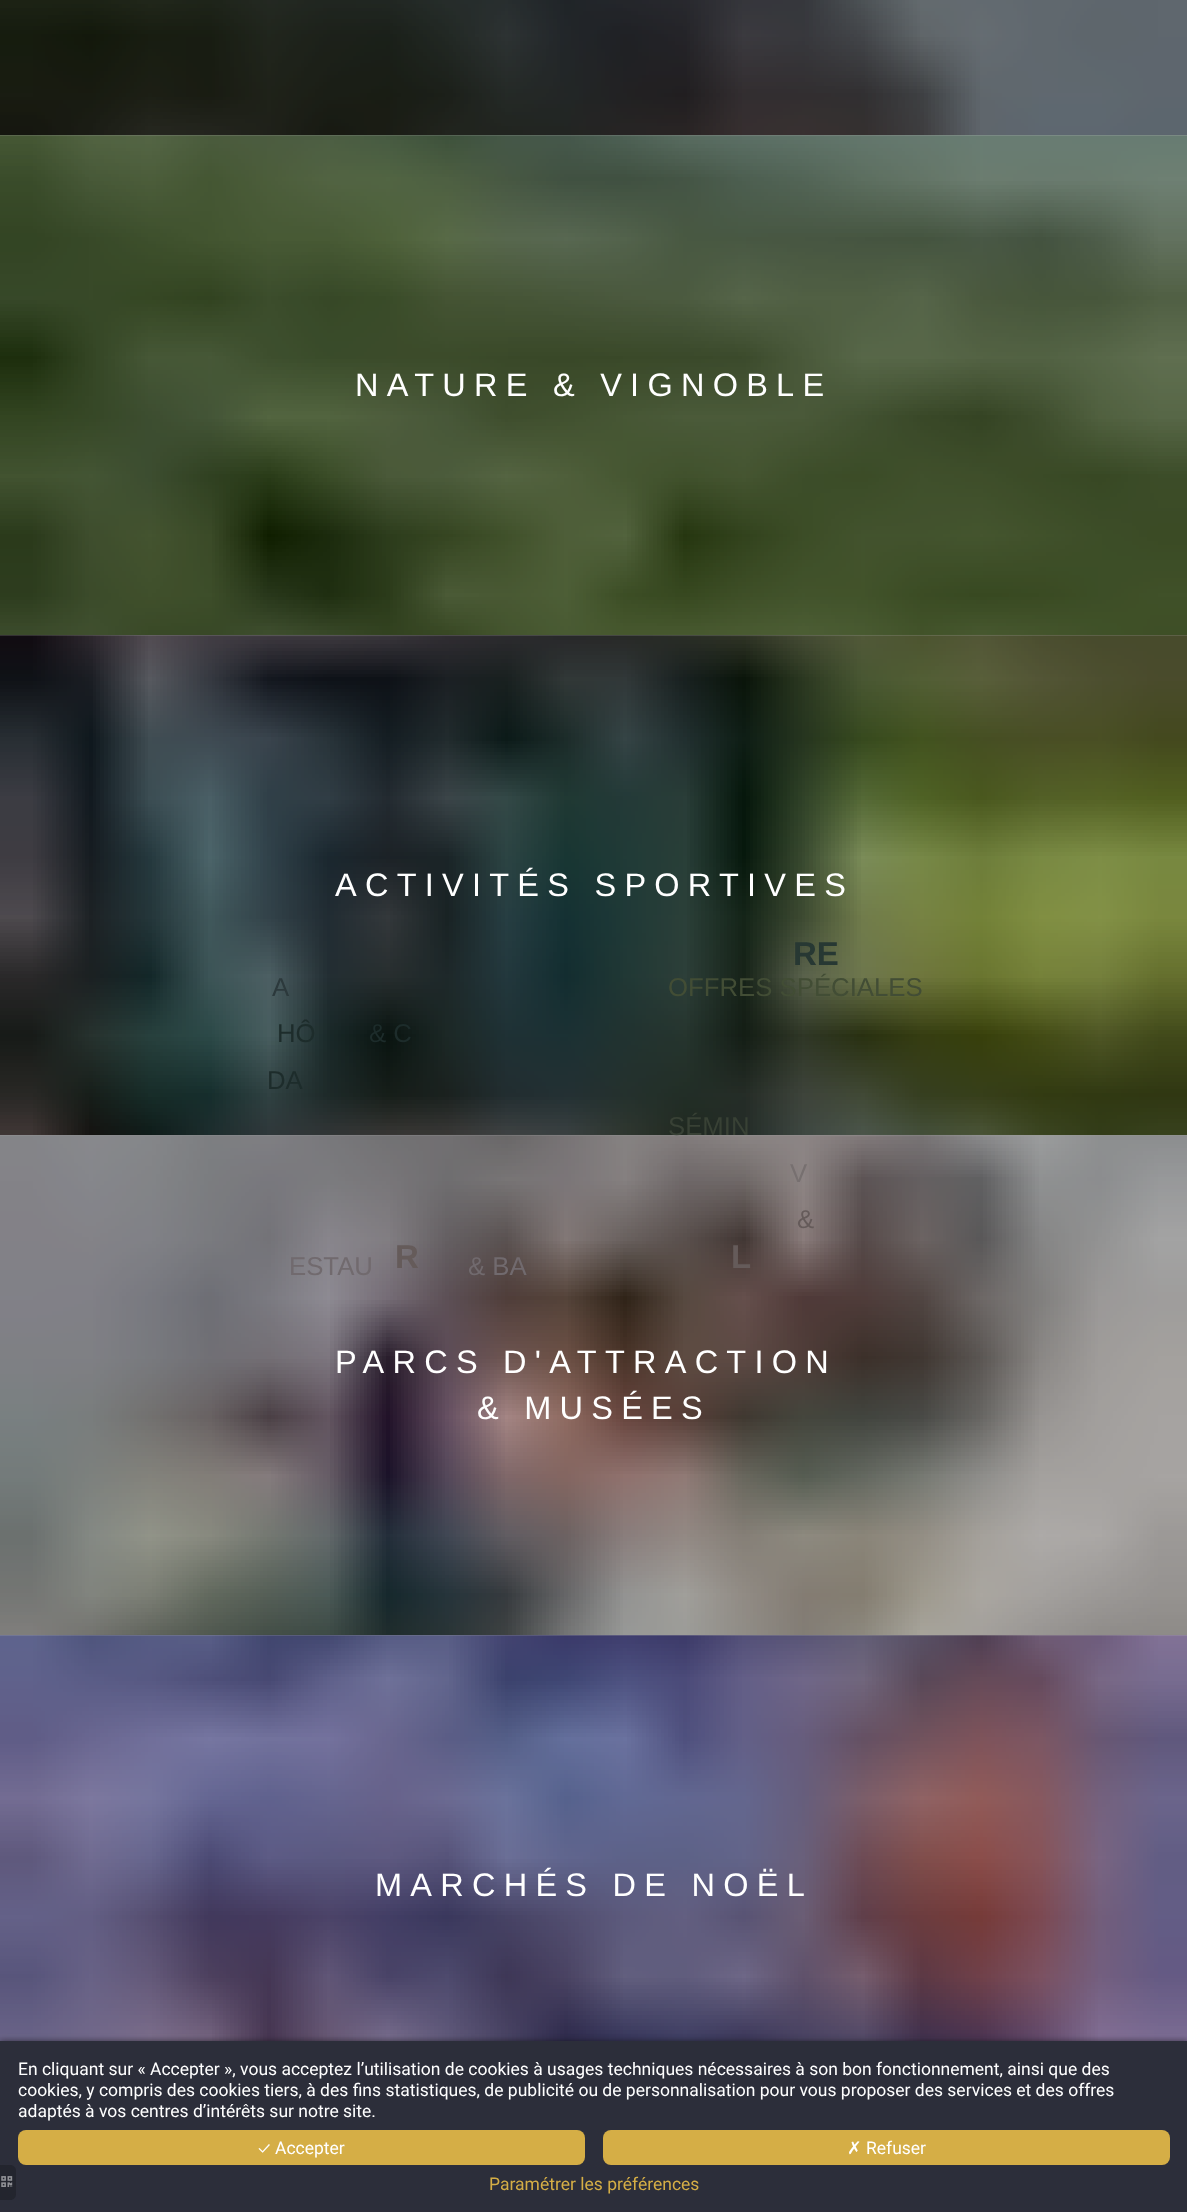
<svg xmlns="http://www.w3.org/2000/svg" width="1187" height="2212">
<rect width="100%" height="100%" fill="#fff"/>
<image x="0" y="0" width="1187" height="136" href="media/1.png"/>
<image x="0" y="135" width="1187" height="501" href="media/2.png"/>
<rect y="135" width="1187" height="500" fill="#00000040"/>
<text x="355" y="396" style="font-family:Liberation Sans;font-size:32.5px;letter-spacing:8.25px;fill:#fff">NATURE &amp; VIGNOBLE</text>
<image x="0" y="635" width="1187" height="501" href="media/3.png"/>
<rect y="635" width="1187" height="500" fill="#00000040"/>
<text x="335" y="896" style="font-family:Liberation Sans;font-size:32.5px;letter-spacing:8.25px;fill:#fff">ACTIVITÉS SPORTIVES</text>
<image x="0" y="1135" width="1187" height="501" href="media/4.png"/>
<rect y="1135" width="1187" height="500" fill="#00000040"/>
<text x="335" y="1373" style="font-family:Liberation Sans;font-size:32.5px;letter-spacing:8.25px;fill:#fff">PARCS D'ATTRACTION</text>
<text x="477" y="1419" style="font-family:Liberation Sans;font-size:32.5px;letter-spacing:8.25px;fill:#fff">&amp; MUSÉES</text>
<image x="0" y="1635" width="1187" height="406" href="media/5.png"/>
<rect y="1635" width="1187" height="406" fill="#00000040"/>
<text x="375" y="1896" style="font-family:Liberation Sans;font-size:32.5px;letter-spacing:8.25px;fill:#fff">MARCHÉS DE NOËL</text>
<text x="793" y="965" style="font-family:Liberation Sans;font-size:33px;font-weight:bold;fill:#273833">RE</text>
<text x="395" y="1268" style="font-family:Liberation Sans;font-size:33px;font-weight:bold;fill:#655b5a">R</text>
<text x="731" y="1268" style="font-family:Liberation Sans;font-size:33px;font-weight:bold;fill:#655b5a">L</text>
<text x="272" y="996" style="font-family:Liberation Sans;font-size:25.75px;fill:#2c393c">A</text>
<text x="277" y="1042" style="font-family:Liberation Sans;font-size:25.75px;fill:#1d2c2b">HÔ</text>
<text x="369" y="1042" style="font-family:Liberation Sans;font-size:25.75px;fill:#1d2c2b">&amp; C</text>
<text x="267" y="1089" style="font-family:Liberation Sans;font-size:25.75px;fill:#1d2c2b">DA</text>
<text x="289" y="1275" style="font-family:Liberation Sans;font-size:25.75px;fill:#716a6e">ESTAU</text>
<text x="468" y="1275" style="font-family:Liberation Sans;font-size:25.75px;fill:#716a6e">&amp; BA</text>
<text x="668" y="996" style="font-family:Liberation Sans;font-size:25.75px;fill:#424d35">OFFRES SPÉCIALES</text>
<text x="668" y="1135" style="font-family:Liberation Sans;font-size:25.75px;fill:#384135">SÉMIN</text>
<text x="790" y="1182" style="font-family:Liberation Sans;font-size:25.75px;fill:#777070">V</text>
<text x="797" y="1228" style="font-family:Liberation Sans;font-size:25.75px;fill:#655b5a">&amp;</text>
<rect y="2041" width="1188" height="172" fill="#00000080" filter="blur(3px)"/>
<rect y="2041" width="1187" height="171" fill="#2c2e3a"/>
<path d="M0 2165h10c3.5 0 6 2.5 6 6v23c0 3.5-2.5 6-6 6h-10z" fill="#23252e"/>
<image x="1" y="2176" width="12" height="11" href="media/6.png"/>
<text x="18" y="2075" style="font-family:Roboto;font-size:17.5px;fill:#fff">En cliquant sur « Accepter », vous acceptez l’utilisation de cookies à usages techniques nécessaires à son bon fonctionnement, ainsi que des</text>
<text x="18" y="2096" style="font-family:Roboto;font-size:17.5px;fill:#fff">cookies, y compris des cookies tiers, à des fins statistiques, de publicité ou de personnalisation pour vous proposer des services et des offres</text>
<text x="18" y="2117" style="font-family:Roboto;font-size:17.5px;fill:#fff">adaptés à vos centres d’intérêts sur notre site.</text>
<rect x="18" y="2130" width="567" height="35" rx="8" fill="#d5ae46"/>
<text x="258" y="2154" style="font-family:Ubuntu;font-size:17.5px;fill:#fff">✓</text>
<text x="275" y="2154" style="font-family:Roboto;font-size:17.5px;fill:#fff">Accepter</text>
<rect x="603" y="2130" width="567" height="35" rx="8" fill="#d5ae46"/>
<text x="847" y="2154" style="font-family:DejaVu Sans;font-size:17.5px;fill:#fff">✗</text>
<text x="866" y="2154" style="font-family:Roboto;font-size:17.5px;fill:#fff">Refuser</text>
<text x="489" y="2190" style="font-family:Roboto;font-size:17.5px;fill:#d5ae46">Paramétrer les préférences</text>
</svg>
